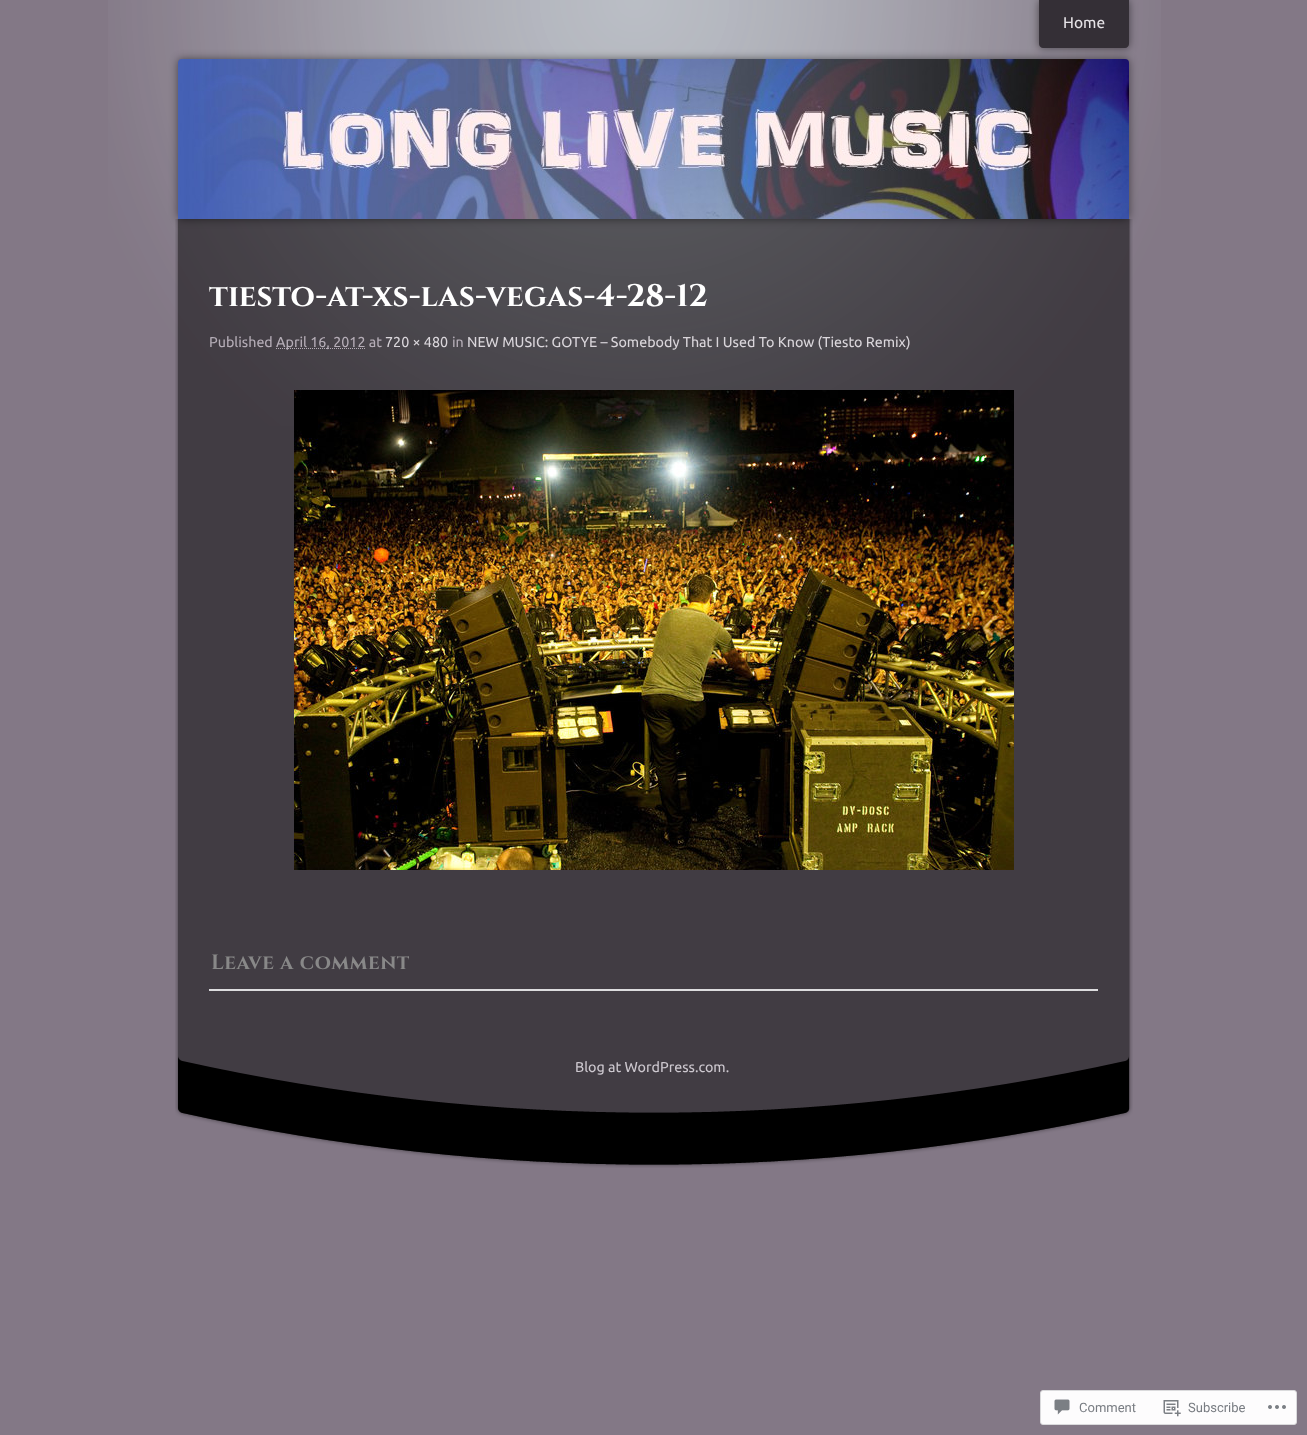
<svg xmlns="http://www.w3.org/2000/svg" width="1307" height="1435">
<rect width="100%" height="100%" fill="#837886"/>
<image x="108" y="0" width="1053" height="426" href="media/1.png"/>
<rect x="1039" width="90" height="48" rx="4" fill="#00000080" filter="blur(4px)"/>
<path d="M1039 0h90v44c0 2-2 4-4 4h-82c-2 0-4-2-4-4z" fill="#342f36"/>
<text x="1063" y="28" style="font-family:Ubuntu;font-size:15.5px;fill:#e6e3e7">Home</text>
<image x="175" y="219" width="958" height="837" href="media/3.png"/>
<rect x="178" y="59" width="951" height="160" rx="4" fill="#00000080" filter="blur(4px)"/>
<image x="178" y="59" width="951" height="160" href="media/2.png"/>
<text x="209" y="306" style="font-family:Cinzel;font-size:31.25px;font-weight:bold;fill:#fff">tiesto-at-xs-las-vegas-4-28-12</text>
<text x="209" y="347" style="font-family:Ubuntu;font-size:14.3px;fill:#b5adb7">Published</text>
<path d="M276 348.5h89.5" fill="none" stroke="#b5adb7" stroke-dasharray="1 1"/>
<text x="276" y="347" style="font-family:Ubuntu;font-size:14.3px;fill:#b5adb7">April 16, 2012 at</text>
<text x="385" y="347" style="font-family:Ubuntu;font-size:14.3px;fill:#dad6db">720 × 480</text>
<text x="452" y="347" style="font-family:Ubuntu;font-size:14.3px;fill:#b5adb7">in</text>
<text x="467" y="347" style="font-family:Ubuntu;font-size:14.3px;fill:#dad6db">NEW MUSIC: GOTYE – Somebody That I Used To Know (Tiesto Remix)</text>
<image x="294" y="390" width="720" height="480" href="media/4.png"/>
<text x="211" y="969" style="font-family:Cinzel;font-size:20.75px;font-weight:bold;letter-spacing:0.5px;fill:#888">Leave a comment</text>
<rect x="209" y="989" width="889" height="2" fill="#dcdcde"/>
<image x="175" y="1056" width="958" height="112" href="media/5.png"/>
<text x="575" y="1072" style="font-family:Ubuntu;font-size:14.3px;fill:#cdc8cf">Blog at WordPress.com.</text>
<rect x="1040.5" y="1390.5" width="256" height="34" rx="2.5" fill="#fdfcfd" stroke="#dadadc"/>
<image x="1054" y="1399" width="16" height="16" href="media/6.png"/>
<text x="1079" y="1412" style="font-family:Roboto;font-size:13px;fill:#787c82">Comment</text>
<image x="1163" y="1400" width="18" height="17" href="media/7.png"/>
<text x="1188" y="1412" style="font-family:Roboto;font-size:13px;fill:#787c82">Subscribe</text>
<image x="1268" y="1405" width="18" height="4" href="media/8.png"/>
</svg>
